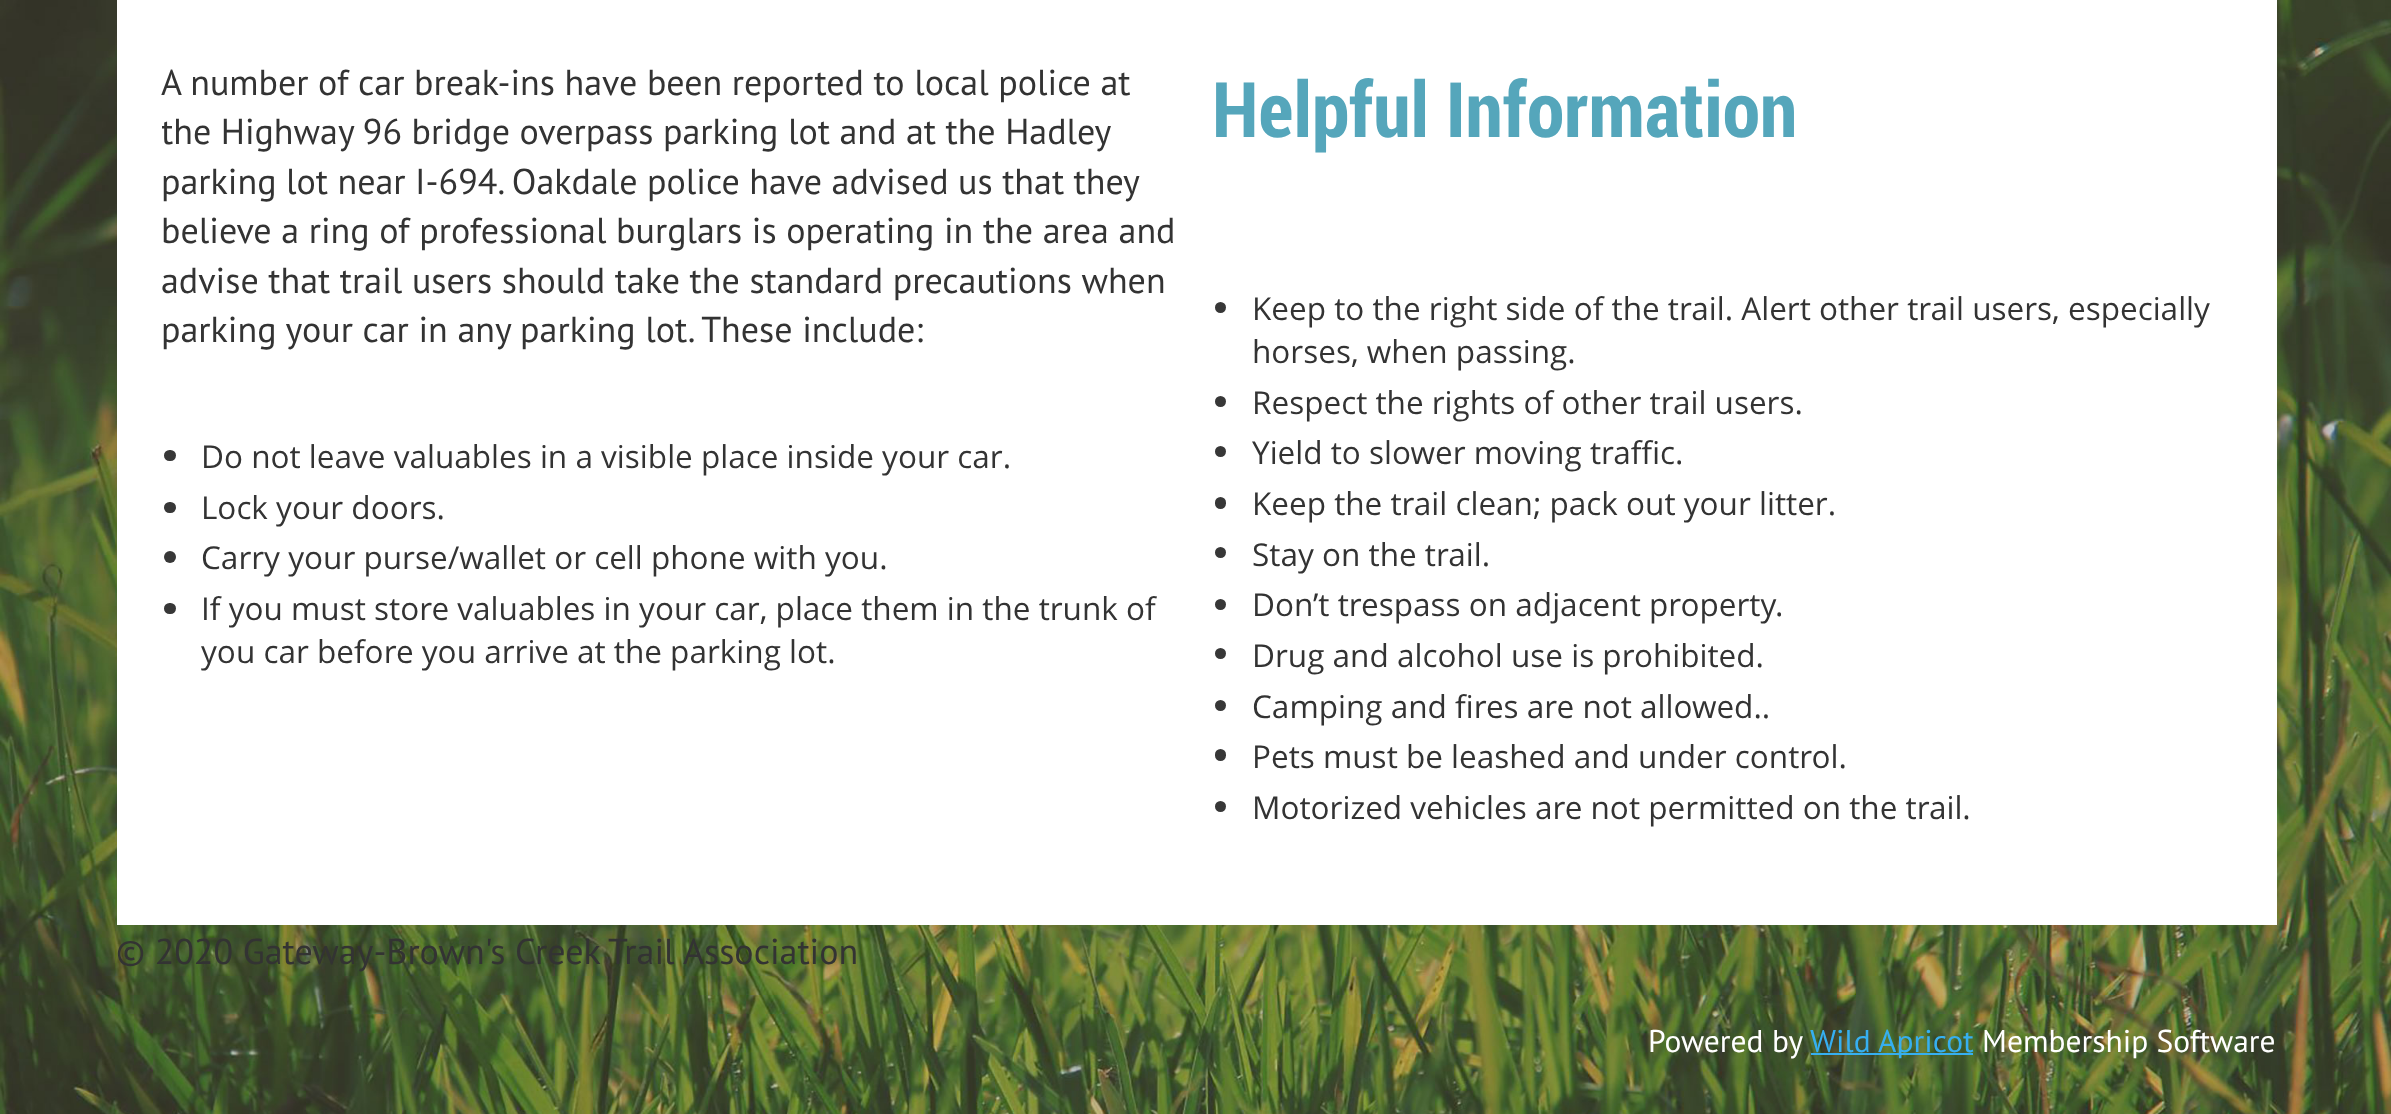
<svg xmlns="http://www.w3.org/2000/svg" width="2391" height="1114">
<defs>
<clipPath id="clip1"><rect x="162" y="56" width="1019" height="624"/></clipPath>
</defs>
<rect width="100%" height="100%" fill="#fff"/>
<image x="0" y="0" width="2391" height="1114" href="media/1.png"/>
<rect x="117" width="2160" height="925" fill="#fff"/>
<text x="161" y="95" style="font-family:PT Sans;font-size:36px;fill:#333">A number of car break-ins have been reported to local police at</text>
<g clip-path="url(#clip1)">
<text x="161" y="144" word-spacing="-0.1" style="font-family:PT Sans;font-size:36px;fill:#333">the Highway 96 bridge overpass parking lot and at the Hadley</text>
</g>
<text x="161" y="194" word-spacing="-0.1" style="font-family:PT Sans;font-size:36px;fill:#333">parking lot near I-694. Oakdale police have advised us that they</text>
<text x="161" y="243" style="font-family:PT Sans;font-size:36px;fill:#333">believe a ring of professional burglars is operating in the area and</text>
<text x="161" y="293" style="font-family:PT Sans;font-size:36px;fill:#333">advise that trail users should take the standard precautions when</text>
<text x="161" y="342" style="font-family:PT Sans;font-size:36px;fill:#333">parking your car in any parking lot. These include:</text>
<rect x="164" y="450" width="12" height="11" rx="5.5" fill="#373737"/>
<text x="201" y="468" style="font-family:Open Sans;font-size:31.5px;fill:#333">Do not leave valuables in a visible place inside your car.</text>
<rect x="164" y="502" width="12" height="11" rx="5.5" fill="#373737"/>
<text x="201" y="519" style="font-family:Open Sans;font-size:31.5px;fill:#333">Lock your doors.</text>
<circle cx="170" cy="557" r="6" fill="#373737"/>
<text x="201" y="569" style="font-family:Open Sans;font-size:31.5px;fill:#333">Carry your purse/wallet or cell phone with you.</text>
<rect x="164" y="603" width="12" height="11" rx="5.5" fill="#373737"/>
<text x="201" y="620" style="font-family:Open Sans;font-size:31.5px;fill:#333">If you must store valuables in your car, place them in the trunk of</text>
<text x="201" y="663" style="font-family:Open Sans;font-size:31.5px;fill:#333">you car before you arrive at the parking lot.</text>
<text x="1212" y="137" style="font-family:Roboto Condensed;font-size:76.5px;font-weight:bold;fill:#55a6bb">Helpful Information</text>
<circle cx="1220.5" cy="307.5" r="5.5" fill="#373737"/>
<text x="1252" y="320" style="font-family:Open Sans;font-size:31.5px;fill:#333">Keep to the right side of the trail. Alert other trail users, especially</text>
<text x="1252" y="363" style="font-family:Open Sans;font-size:31.5px;fill:#333">horses, when passing.</text>
<circle cx="1220.5" cy="401.5" r="5.5" fill="#373737"/>
<text x="1252" y="414" style="font-family:Open Sans;font-size:31.5px;fill:#333">Respect the rights of other trail users.</text>
<circle cx="1220.5" cy="451.5" r="5.5" fill="#373737"/>
<text x="1252" y="464" style="font-family:Open Sans;font-size:31.5px;fill:#333">Yield to slower moving traffic.</text>
<rect x="1215" y="497" width="11" height="12" rx="5.5" fill="#373737"/>
<text x="1252" y="515" style="font-family:Open Sans;font-size:31.5px;fill:#333">Keep the trail clean; pack out your litter.</text>
<circle cx="1220.5" cy="552.5" r="5.5" fill="#373737"/>
<text x="1252" y="566" style="font-family:Open Sans;font-size:31.5px;fill:#333">Stay on the trail.</text>
<circle cx="1220.5" cy="604.5" r="5.5" fill="#373737"/>
<text x="1252" y="616" style="font-family:Open Sans;font-size:31.5px;fill:#333">Don’t trespass on adjacent property.</text>
<circle cx="1220.5" cy="653.5" r="5.5" fill="#373737"/>
<text x="1252" y="667" style="font-family:Open Sans;font-size:31.5px;fill:#333">Drug and alcohol use is prohibited.</text>
<circle cx="1220.5" cy="705.5" r="5.5" fill="#373737"/>
<text x="1252" y="718" style="font-family:Open Sans;font-size:31.5px;fill:#333">Camping and fires are not allowed..</text>
<rect x="1215" y="749" width="11" height="12" rx="5.5" fill="#373737"/>
<text x="1252" y="768" style="font-family:Open Sans;font-size:31.5px;fill:#333">Pets must be leashed and under control.</text>
<circle cx="1220.5" cy="806.5" r="5.5" fill="#373737"/>
<text x="1252" y="819" style="font-family:Open Sans;font-size:31.5px;fill:#333">Motorized vehicles are not permitted on the trail.</text>
<text x="116" y="964" style="font-family:PT Sans;font-size:36px;fill:#333">© 2020 Gateway-Brown's Creek Trail Association</text>
<text x="1648" y="1052" style="font-family:PT Sans;font-size:31.5px;fill:#fff">Powered by</text>
<rect x="1811" y="1053" width="162" height="2" fill="#36aff0"/>
<text x="1810" y="1052" style="font-family:PT Sans;font-size:31.5px;fill:#36aff0">Wild Apricot</text>
<text x="1982" y="1052" style="font-family:PT Sans;font-size:31.5px;fill:#fff">Membership Software</text>
</svg>
